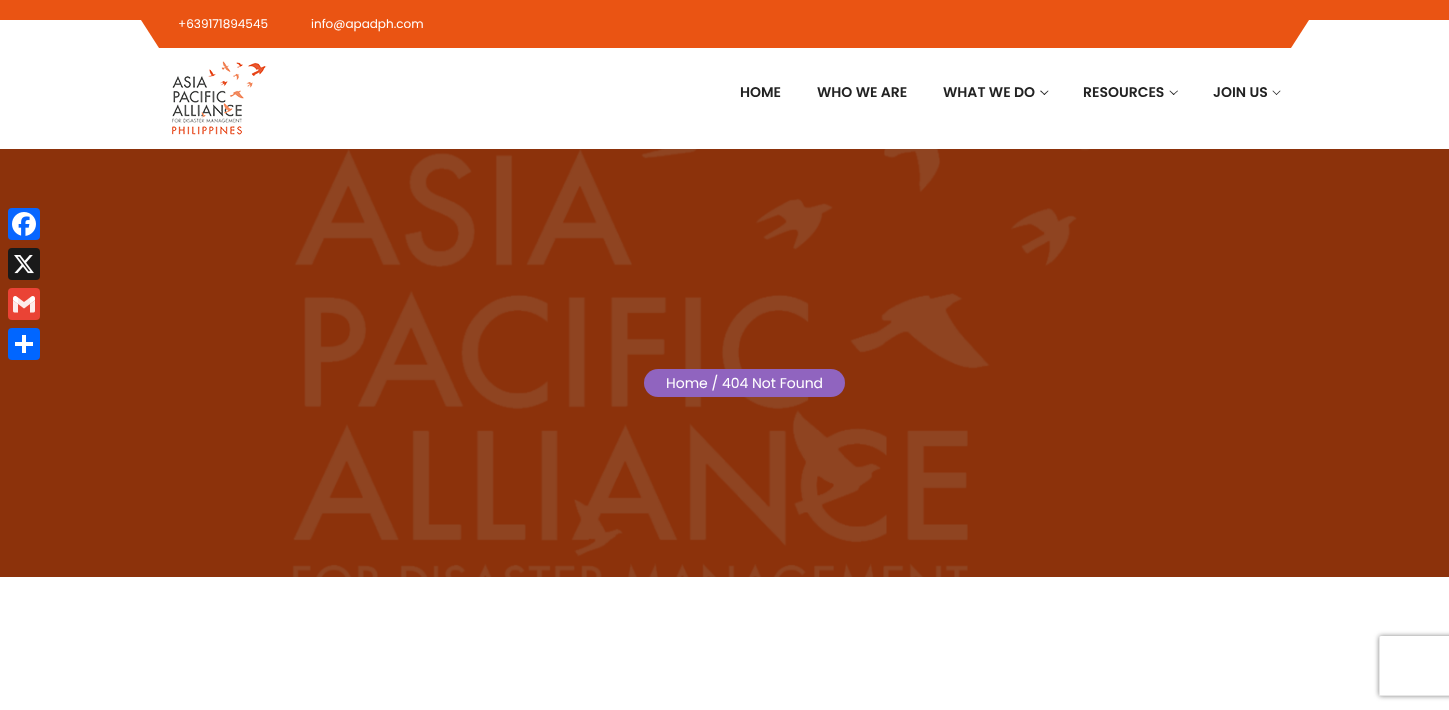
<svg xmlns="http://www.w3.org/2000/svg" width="1449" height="710">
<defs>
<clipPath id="clip1"><path d="M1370 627h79v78h-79zm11 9h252c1 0 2 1 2 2v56c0 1-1 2-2 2h-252c-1 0-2-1-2-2v-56c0-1 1-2 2-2z" clip-rule="evenodd"/></clipPath>
<clipPath id="clip2"><rect x="1379" y="636" width="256" height="60" rx="2"/></clipPath>
</defs>
<rect width="100%" height="100%" fill="#fff"/>
<rect width="1449" height="48" fill="#ea5413"/>
<path d="M159 48h-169v-28h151z" fill="#fff"/>
<text x="178" y="28" style="font-family:Poppins;font-size:12px;fill:#fff">+639171894545</text>
<text x="311" y="28" style="font-family:Poppins;font-size:12px;fill:#fff">info@apadph.com</text>
<rect x="1291" y="20" width="158" height="28" fill="#fff"/>
<path d="M1291 48v-46l18 18z" fill="#ea5413"/>
<image x="172" y="61" width="95" height="74" href="media/1.png"/>
<text x="740" y="97" style="font-family:Poppins;font-size:14px;font-weight:600;fill:#222">HOME</text>
<text x="817" y="97" style="font-family:Poppins;font-size:14px;font-weight:600;fill:#222">WHO WE ARE</text>
<text x="943" y="97" style="font-family:Poppins;font-size:14px;font-weight:600;fill:#222">WHAT WE DO</text>
<path d="M1048 90.5l.5 .5l-4 4l-1-.5z" fill="#222"/>
<path d="M1041 90.5l4 4l-.5 .5l-4.5-4z" fill="#222"/>
<text x="1083" y="97" style="font-family:Poppins;font-size:14px;font-weight:600;fill:#222">RESOURCES</text>
<path d="M1177.5 90.5l.5 .5l-4.5 4l-.5-.5z" fill="#222"/>
<path d="M1170 90.5l4.5 4l-1 .5l-4-4z" fill="#222"/>
<text x="1213" y="97" style="font-family:Poppins;font-size:14px;font-weight:600;fill:#222">JOIN US</text>
<path d="M1280 90.5l.5 .5l-4 4l-.5-.5z" fill="#222"/>
<path d="M1273 90.5l4 4l-.5 .5l-4-4z" fill="#222"/>
<image x="0" y="149" width="1449" height="428" href="media/5.png"/>
<rect x="8" y="208" width="32" height="32" rx="4" fill="#0866ff"/>
<image x="12" y="212" width="24" height="24" href="media/2.png"/>
<rect x="8" y="248" width="32" height="32" rx="4" fill="#1a1a1a"/>
<image x="14" y="255" width="20" height="19" href="media/3.png"/>
<rect x="8" y="288" width="32" height="32" rx="4" fill="#ea4335"/>
<image x="13" y="296" width="22" height="17" href="media/4.png"/>
<rect x="8" y="328" width="32" height="32" rx="4" fill="#0166ff"/>
<rect x="22" y="335" width="4" height="18" fill="#fff"/>
<rect x="15" y="342" width="18" height="4" fill="#fff"/>
<rect x="644" y="369" width="201" height="28" rx="14" fill="#9064bf"/>
<text x="666" y="388" style="font-family:Poppins;font-size:14px;fill:#fff">Home / 404 Not Found</text>
<g clip-path="url(#clip1)">
<rect x="1379" y="636" width="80" height="60" rx="2" fill="#808080" filter="blur(2.5px)"/>
</g>
<rect x="1379" y="695" width="70" height="1" fill="#e7e7e7"/>
<g clip-path="url(#clip2)">
<rect x="1379" y="636" width="1" height="60" fill="#e7e7e7"/>
</g>
</svg>
